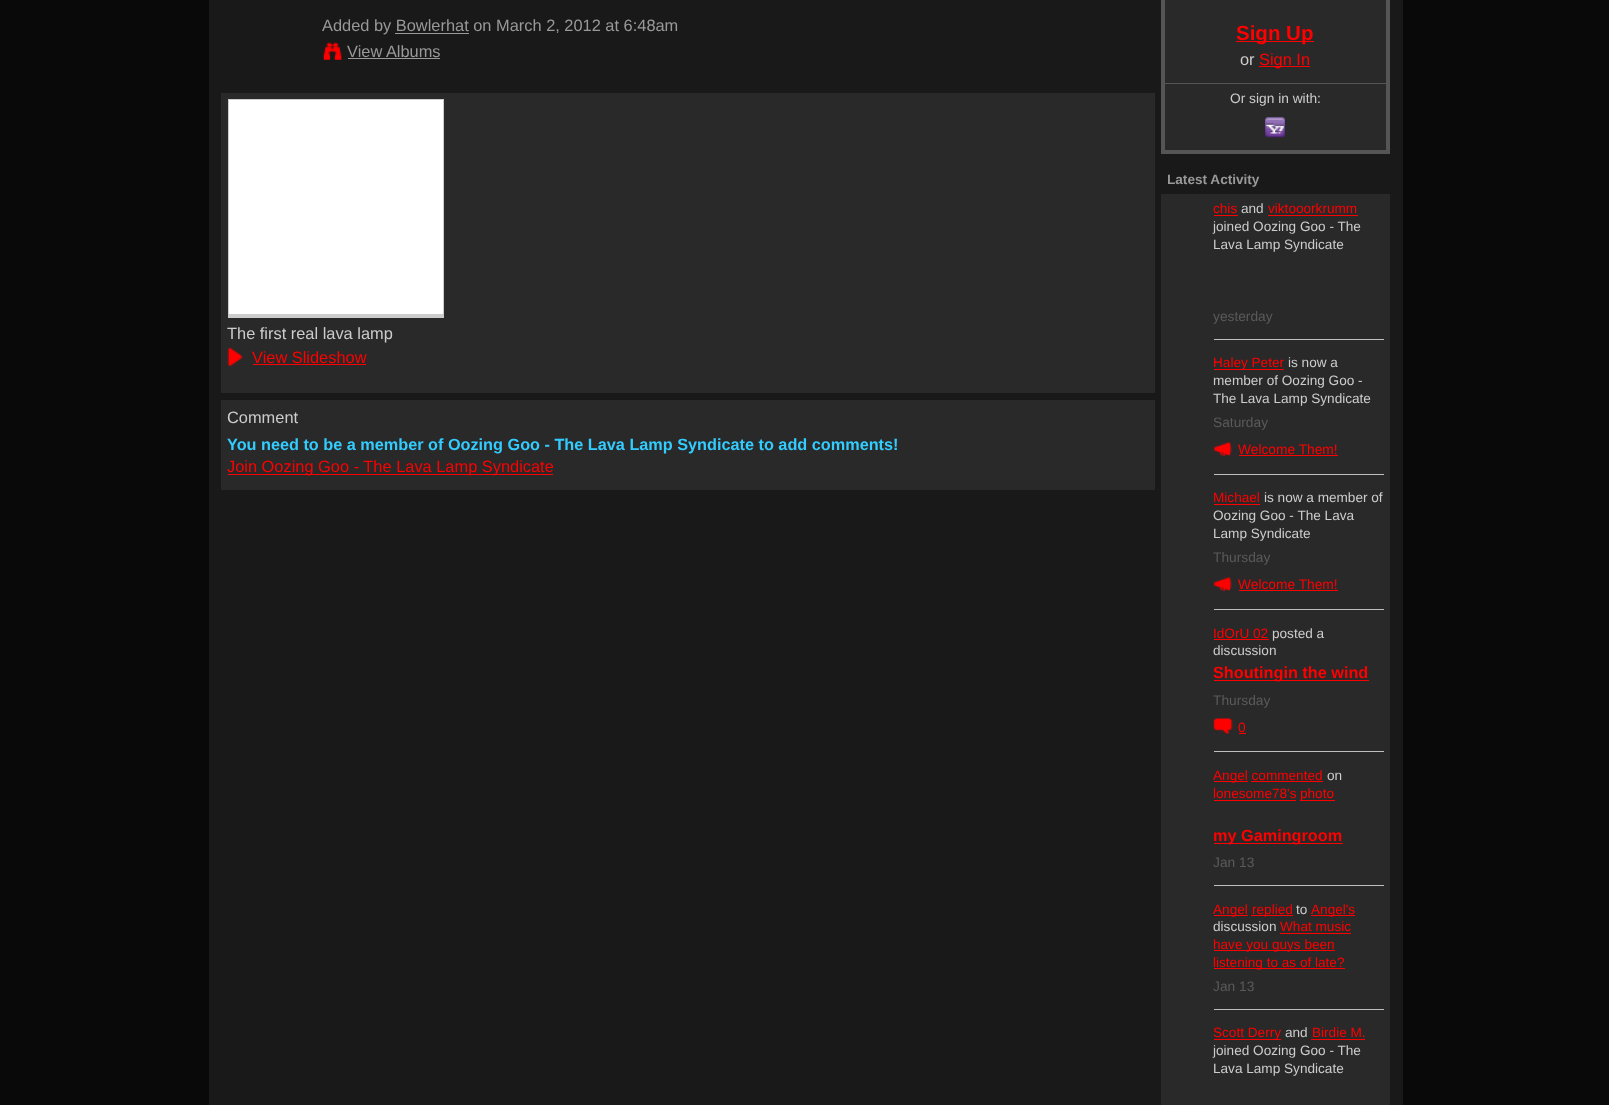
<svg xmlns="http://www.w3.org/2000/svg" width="1609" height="1105">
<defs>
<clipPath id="clip1"><rect x="1168" y="171" width="92" height="18"/></clipPath>
</defs>
<rect width="100%" height="100%" fill="#090909"/>
<rect x="209" width="1194" height="1105" fill="#191919"/>
<text x="322" y="31" style="font-family:Liberation Sans;font-size:16.4px;fill:#999">Added by Bowlerhat on March 2, 2012 at 6:48am</text>
<rect x="395" y="33" width="74" height="1" fill="#999"/>
<image x="323" y="42" width="19" height="18" href="media/1.png"/>
<text x="347" y="57" style="font-family:Liberation Sans;font-size:16.4px;fill:#999">View Albums</text>
<rect x="348" y="58" width="92" height="1" fill="#999"/>
<rect x="221" y="93" width="934" height="300" fill="#292929"/>
<rect x="229" y="100" width="214" height="214" fill="#fff"/>
<rect x="228" y="99" width="216" height="1" fill="#ccc"/>
<rect x="443" y="99" width="1" height="219" fill="#ccc"/>
<rect x="228" y="314" width="216" height="4" fill="#ccc"/>
<rect x="228" y="99" width="1" height="219" fill="#ccc"/>
<text x="227" y="339" style="font-family:Liberation Sans;font-size:16.4px;fill:#ccc">The first real lava lamp</text>
<image x="227" y="347" width="16" height="19" href="media/2.png"/>
<text x="252" y="363" style="font-family:Liberation Sans;font-size:16.4px;fill:#f00">View Slideshow</text>
<rect x="253" y="364" width="113" height="1" fill="#f00"/>
<rect x="221" y="400" width="934" height="90" fill="#292929"/>
<text x="227" y="423" style="font-family:Liberation Sans;font-size:16.4px;fill:#ccc">Comment</text>
<text x="227" y="450" style="font-family:Liberation Sans;font-size:16.25px;font-weight:bold;fill:#3cf">You need to be a member of Oozing Goo - The Lava Lamp Syndicate to add comments!</text>
<rect x="228" y="474" width="325" height="1" fill="#f00"/>
<text x="227" y="472" style="font-family:Liberation Sans;font-size:16.4px;fill:#f00">Join Oozing Goo - The Lava Lamp Syndicate</text>
<rect x="1163" y="-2" width="225" height="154" fill="#292929" stroke="#555" stroke-width="4"/>
<rect x="1236" y="41" width="78" height="1" fill="#f00"/>
<text x="1236" y="40" style="font-family:Liberation Sans;font-size:20.5px;font-weight:bold;fill:#f00">Sign Up</text>
<text x="1240" y="65" style="font-family:Liberation Sans;font-size:16.4px;fill:#ccc">or</text>
<rect x="1259" y="66" width="51" height="1" fill="#f00"/>
<text x="1259" y="65" style="font-family:Liberation Sans;font-size:16.4px;fill:#f00">Sign In</text>
<rect x="1165" y="83" width="221" height="1" fill="#555"/>
<text x="1230" y="103" style="font-family:Liberation Sans;font-size:13.75px;fill:#ccc">Or sign in with:</text>
<image x="1265" y="117" width="20" height="21" href="media/3.png"/>
<g clip-path="url(#clip1)">
<text x="1167" y="184" style="font-family:Liberation Sans;font-size:13.6px;font-weight:bold;fill:#999">Latest Activity</text>
</g>
<rect x="1161" y="194" width="229" height="911" fill="#292929"/>
<rect x="1214" y="339" width="170" height="1" fill="#c0c0c0"/>
<text x="1213" y="213" style="font-family:Liberation Sans;font-size:13.6px;fill:#f00">chis</text>
<rect x="1214" y="215" width="24" height="1" fill="#f00"/>
<text x="1241" y="213" style="font-family:Liberation Sans;font-size:13.6px;fill:#ccc">and</text>
<text x="1268" y="213" style="font-family:Liberation Sans;font-size:13.6px;fill:#f00">viktooorkrumm</text>
<rect x="1268" y="215" width="90" height="1" fill="#f00"/>
<text x="1213" y="231" style="font-family:Liberation Sans;font-size:13.6px;fill:#ccc">joined Oozing Goo - The</text>
<text x="1213" y="249" style="font-family:Liberation Sans;font-size:13.6px;fill:#ccc">Lava Lamp Syndicate</text>
<text x="1213" y="321" style="font-family:Liberation Sans;font-size:13.75px;fill:#5a5a5a">yesterday</text>
<rect x="1214" y="474" width="170" height="1" fill="#c0c0c0"/>
<rect x="1214" y="369" width="70" height="1" fill="#f00"/>
<text x="1213" y="367" style="font-family:Liberation Sans;font-size:13.6px;fill:#f00">Haley Peter</text>
<text x="1288" y="367" style="font-family:Liberation Sans;font-size:13.6px;fill:#ccc">is now a</text>
<text x="1213" y="385" style="font-family:Liberation Sans;font-size:13.6px;fill:#ccc">member of Oozing Goo -</text>
<text x="1213" y="403" style="font-family:Liberation Sans;font-size:13.6px;fill:#ccc">The Lava Lamp Syndicate</text>
<text x="1213" y="427" style="font-family:Liberation Sans;font-size:13.75px;fill:#5a5a5a">Saturday</text>
<image x="1213" y="442" width="19" height="14" href="media/4.png"/>
<text x="1238" y="454" style="font-family:Liberation Sans;font-size:13.75px;fill:#f00">Welcome Them!</text>
<rect x="1239" y="455" width="99" height="1" fill="#f00"/>
<rect x="1214" y="609" width="170" height="1" fill="#c0c0c0"/>
<text x="1213" y="502" style="font-family:Liberation Sans;font-size:13.6px;fill:#f00">Michael</text>
<rect x="1214" y="504" width="46" height="1" fill="#f00"/>
<text x="1264" y="502" style="font-family:Liberation Sans;font-size:13.6px;fill:#ccc">is now a member of</text>
<text x="1213" y="520" style="font-family:Liberation Sans;font-size:13.6px;fill:#ccc">Oozing Goo - The Lava</text>
<text x="1213" y="538" style="font-family:Liberation Sans;font-size:13.6px;fill:#ccc">Lamp Syndicate</text>
<text x="1213" y="562" style="font-family:Liberation Sans;font-size:13.75px;fill:#5a5a5a">Thursday</text>
<image x="1213" y="577" width="19" height="14" href="media/4.png"/>
<text x="1238" y="589" style="font-family:Liberation Sans;font-size:13.75px;fill:#f00">Welcome Them!</text>
<rect x="1239" y="590" width="99" height="1" fill="#f00"/>
<rect x="1214" y="751" width="170" height="1" fill="#c0c0c0"/>
<text x="1213" y="638" style="font-family:Liberation Sans;font-size:13.6px;fill:#f00">IdOrU 02</text>
<rect x="1214" y="639" width="55" height="1" fill="#f00"/>
<text x="1272" y="638" style="font-family:Liberation Sans;font-size:13.6px;fill:#ccc">posted a</text>
<text x="1213" y="655" style="font-family:Liberation Sans;font-size:13.6px;fill:#ccc">discussion</text>
<rect x="1214" y="680" width="155" height="1" fill="#f00"/>
<text x="1213" y="678" style="font-family:Liberation Sans;font-size:16.25px;font-weight:bold;fill:#f00">Shoutingin the wind</text>
<text x="1213" y="705" style="font-family:Liberation Sans;font-size:13.75px;fill:#5a5a5a">Thursday</text>
<image x="1213" y="718" width="20" height="16" href="media/5.png"/>
<text x="1238" y="732" style="font-family:Liberation Sans;font-size:13.75px;fill:#f00">0</text>
<rect x="1239" y="733" width="7" height="1" fill="#f00"/>
<rect x="1214" y="885" width="170" height="1" fill="#c0c0c0"/>
<rect x="1214" y="781" width="34" height="1" fill="#f00"/>
<text x="1213" y="780" style="font-family:Liberation Sans;font-size:13.6px;fill:#f00">Angel commented</text>
<rect x="1251" y="781" width="72" height="1" fill="#f00"/>
<text x="1327" y="780" style="font-family:Liberation Sans;font-size:13.6px;fill:#ccc">on</text>
<text x="1213" y="798" style="font-family:Liberation Sans;font-size:13.6px;fill:#f00">lonesome78's</text>
<rect x="1214" y="800" width="82" height="1" fill="#f00"/>
<rect x="1300" y="800" width="35" height="1" fill="#f00"/>
<text x="1300" y="798" style="font-family:Liberation Sans;font-size:13.6px;fill:#f00">photo</text>
<rect x="1214" y="843" width="129" height="1" fill="#f00"/>
<text x="1213" y="841" style="font-family:Liberation Sans;font-size:16.25px;font-weight:bold;fill:#f00">my Gamingroom</text>
<text x="1213" y="867" style="font-family:Liberation Sans;font-size:13.75px;fill:#5a5a5a">Jan 13</text>
<rect x="1214" y="1009" width="170" height="1" fill="#c0c0c0"/>
<rect x="1214" y="915" width="34" height="1" fill="#f00"/>
<text x="1213" y="914" style="font-family:Liberation Sans;font-size:13.6px;fill:#f00">Angel</text>
<rect x="1251" y="915" width="42" height="1" fill="#f00"/>
<text x="1252" y="914" style="font-family:Liberation Sans;font-size:13.6px;fill:#f00">replied</text>
<text x="1296" y="914" style="font-family:Liberation Sans;font-size:13.6px;fill:#ccc">to</text>
<rect x="1311" y="915" width="44" height="1" fill="#f00"/>
<text x="1311" y="914" style="font-family:Liberation Sans;font-size:13.6px;fill:#f00">Angel's</text>
<text x="1213" y="931" style="font-family:Liberation Sans;font-size:13.6px;fill:#ccc">discussion</text>
<text x="1280" y="931" style="font-family:Liberation Sans;font-size:13.6px;fill:#f00">What music</text>
<rect x="1280" y="933" width="71" height="1" fill="#f00"/>
<rect x="1214" y="950" width="121" height="1" fill="#f00"/>
<text x="1213" y="949" style="font-family:Liberation Sans;font-size:13.6px;fill:#f00">have you guys been</text>
<rect x="1214" y="968" width="131" height="1" fill="#f00"/>
<text x="1213" y="967" style="font-family:Liberation Sans;font-size:13.6px;fill:#f00">listening to as of late?</text>
<text x="1213" y="991" style="font-family:Liberation Sans;font-size:13.75px;fill:#5a5a5a">Jan 13</text>
<rect x="1214" y="1039" width="67" height="1" fill="#f00"/>
<text x="1213" y="1037" style="font-family:Liberation Sans;font-size:13.6px;fill:#f00">Scott Derry</text>
<text x="1285" y="1037" style="font-family:Liberation Sans;font-size:13.6px;fill:#ccc">and</text>
<text x="1312" y="1037" style="font-family:Liberation Sans;font-size:13.6px;fill:#f00">Birdie M.</text>
<rect x="1311" y="1039" width="54" height="1" fill="#f00"/>
<text x="1213" y="1055" style="font-family:Liberation Sans;font-size:13.6px;fill:#ccc">joined Oozing Goo - The</text>
<text x="1213" y="1073" style="font-family:Liberation Sans;font-size:13.6px;fill:#ccc">Lava Lamp Syndicate</text>
</svg>
